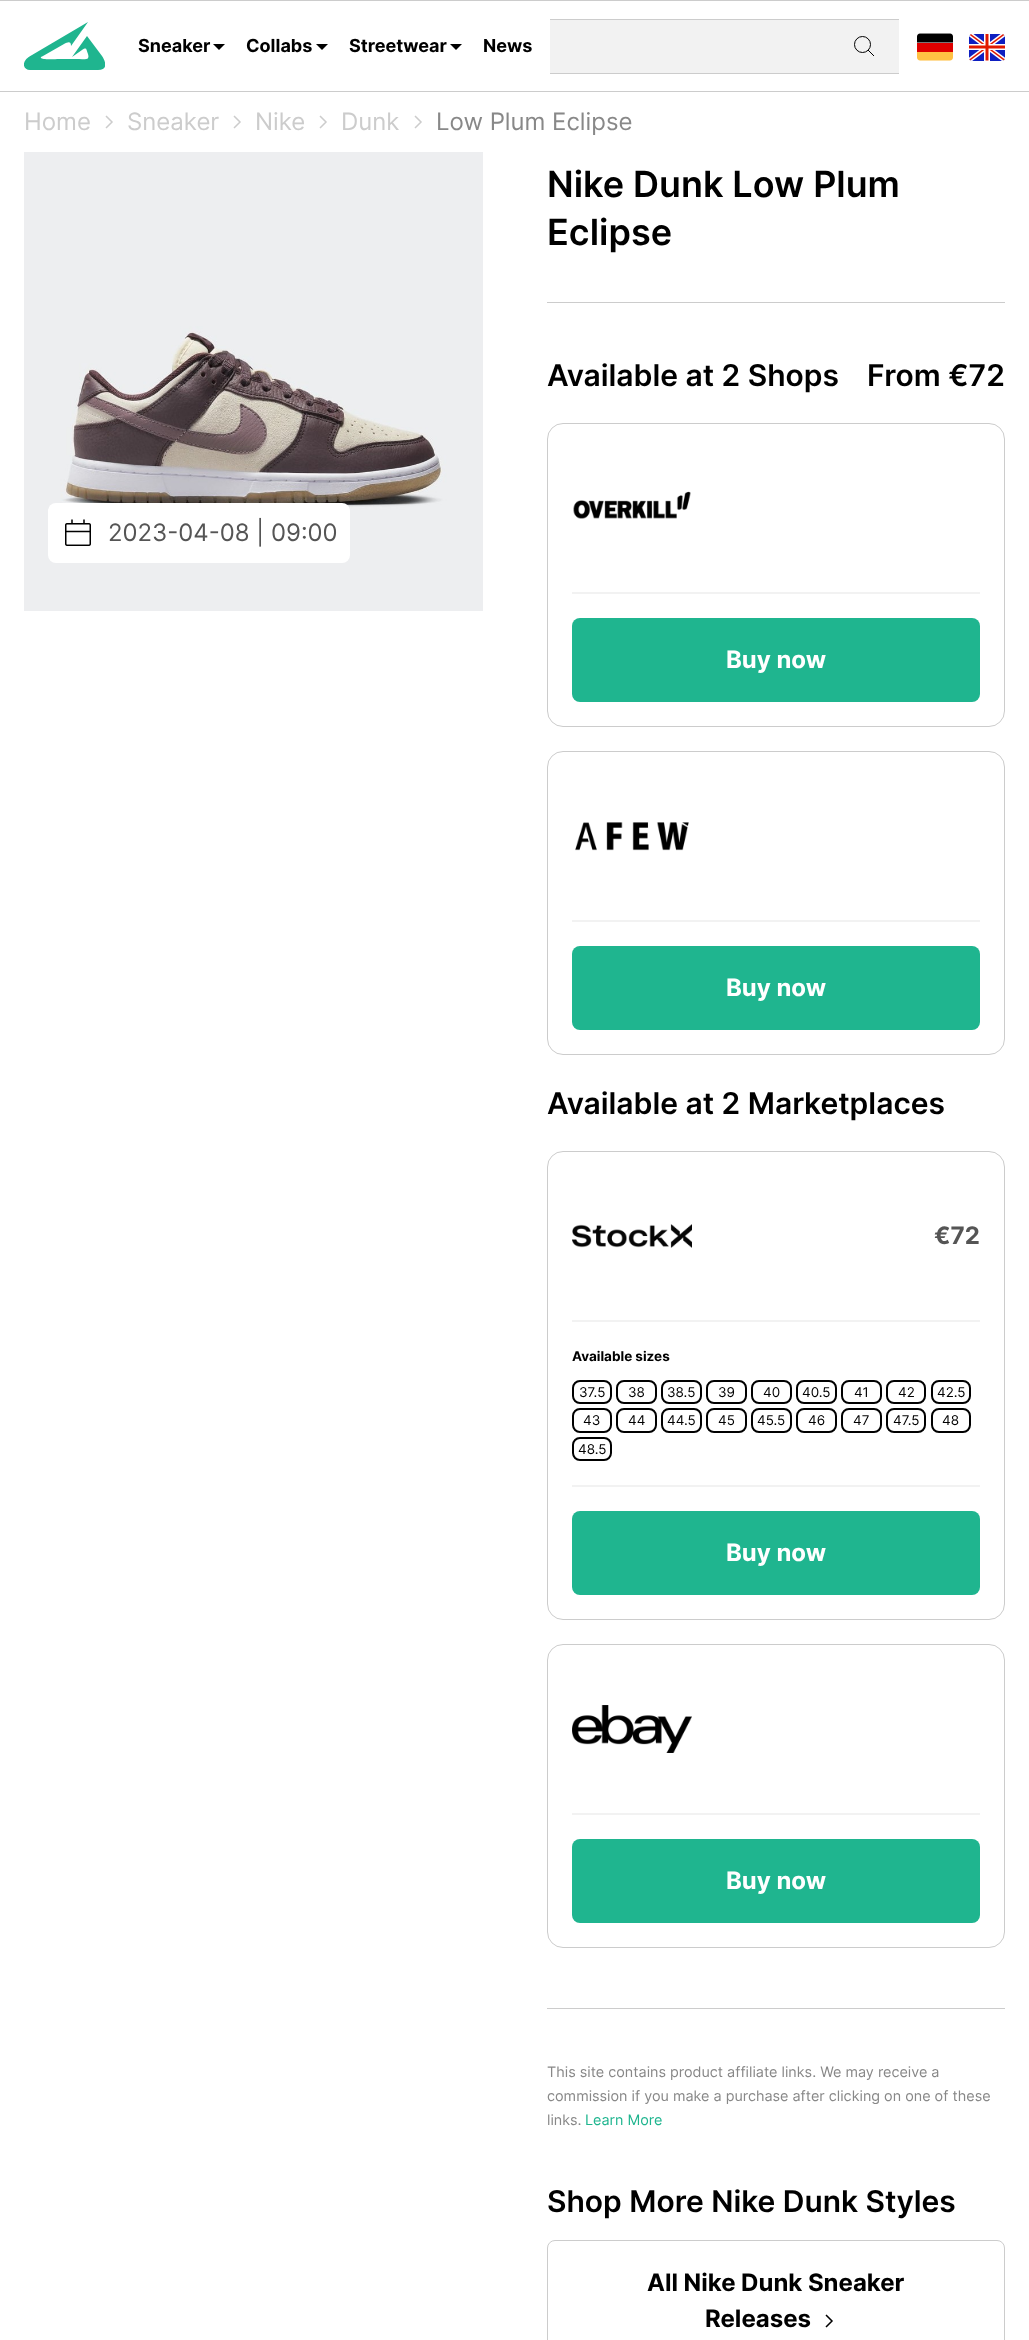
<svg xmlns="http://www.w3.org/2000/svg" width="1029" height="2340">
<defs>
<clipPath id="clip1"><rect x="24" y="22" width="81" height="48"/></clipPath>
</defs>
<rect width="100%" height="100%" fill="#fff"/>
<rect width="1029" height="1" fill="#ccc"/>
<rect y="91" width="1029" height="1" fill="#ccc"/>
<g clip-path="url(#clip1)">
<path d="M30 70h68c10 0 8-8 4-14l-15-20l-15 21l10-7c5-3 4-1 6 4c2 7-3 5-9 5h-20c-3 0-17 1-18-1c-1-1 2-2 2-2l21-12c4-2 7-3 7 2l17-24l-56 33c-12 6-9 15-2 15z" fill="#1fb58f"/>
</g>
<text x="138" y="52" style="font-family:Inter;font-size:18px;font-weight:bold;fill:#000">Sneaker</text>
<image x="213" y="44" width="12" height="6" href="media/1.png"/>
<text x="246" y="52" style="font-family:Inter;font-size:18px;font-weight:bold;fill:#000">Collabs</text>
<image x="316" y="44" width="12" height="6" href="media/1.png"/>
<text x="349" y="52" style="font-family:Inter;font-size:18px;font-weight:bold;fill:#000">Streetwear</text>
<image x="450" y="44" width="12" height="6" href="media/1.png"/>
<text x="483" y="52" style="font-family:Inter;font-size:18px;font-weight:bold;fill:#000">News</text>
<rect x="550" y="20" width="349" height="53" fill="#f2f2f2"/>
<rect x="550" y="19" width="349" height="1" fill="#ccc"/>
<rect x="550" y="73" width="349" height="1" fill="#ccc"/>
<circle cx="862.5" cy="44.5" r="8" fill="none" stroke="#000"/>
<path d="M874 56l-6-6" fill="none" stroke="#000"/>
<image x="917" y="33" width="36" height="28" href="media/2.png"/>
<image x="969" y="34" width="36" height="27" href="media/3.png"/>
<text x="24" y="130" style="font-family:Inter;font-size:24px;fill:#ccc">Home</text>
<path d="M106 116l6 6l-6 6" fill="none" stroke="#ccc" stroke-width="1.5"/>
<text x="127" y="130" style="font-family:Inter;font-size:24px;fill:#ccc">Sneaker</text>
<path d="M234 116l6 6l-6 6" fill="none" stroke="#ccc" stroke-width="1.5"/>
<text x="255" y="130" style="font-family:Inter;font-size:24px;fill:#ccc">Nike</text>
<path d="M320 116l6 6l-6 6" fill="none" stroke="#ccc" stroke-width="1.5"/>
<text x="341" y="130" style="font-family:Inter;font-size:24px;fill:#ccc">Dunk</text>
<path d="M415 116l6 6l-6 6" fill="none" stroke="#ccc" stroke-width="1.5"/>
<text x="436" y="130" style="font-family:Inter;font-size:24px;fill:#888">Low Plum Eclipse</text>
<image x="24" y="152" width="459" height="459" href="media/4.png"/>
<rect x="48" y="503" width="302" height="60" rx="8" fill="#fff"/>
<image x="65" y="519" width="26" height="27" href="media/5.png"/>
<text x="108" y="541" style="font-family:Inter;font-size:24px;fill:#555">2023-04-08 | 09:00</text>
<rect x="547" y="302" width="458" height="1" fill="#ccc"/>
<text x="547" y="197" style="font-family:Inter;font-size:36px;font-weight:600;fill:#000">Nike Dunk Low Plum</text>
<text x="547" y="245" style="font-family:Inter;font-size:36px;font-weight:600;fill:#000">Eclipse</text>
<rect x="547" y="2008" width="458" height="1" fill="#ccc"/>
<text x="547" y="386" style="font-family:Inter;font-size:30px;font-weight:600;fill:#000">Available at 2 Shops</text>
<text x="867" y="386" style="font-family:Inter;font-size:30px;font-weight:600;fill:#000">From €72</text>
<rect x="547.5" y="423.5" width="457" height="303" rx="15.5" fill="none" stroke="#ccc"/>
<image x="573" y="491" width="118" height="28" href="media/6.png"/>
<rect x="572" y="592" width="408" height="2" fill="#f2f2f2"/>
<rect x="572" y="618" width="408" height="84" rx="8" fill="#1fb58f"/>
<text x="726" y="668" style="font-family:Inter;font-size:24px;font-weight:bold;fill:#fff">Buy now</text>
<rect x="547.5" y="751.5" width="457" height="303" rx="15.5" fill="none" stroke="#ccc"/>
<image x="575" y="822" width="114" height="29" href="media/7.png"/>
<rect x="572" y="920" width="408" height="2" fill="#f2f2f2"/>
<rect x="572" y="946" width="408" height="84" rx="8" fill="#1fb58f"/>
<text x="726" y="996" style="font-family:Inter;font-size:24px;font-weight:bold;fill:#fff">Buy now</text>
<text x="547" y="1114" style="font-family:Inter;font-size:30px;font-weight:600;fill:#000">Available at 2 Marketplaces</text>
<rect x="547.5" y="1151.5" width="457" height="468" rx="15.5" fill="none" stroke="#ccc"/>
<image x="572" y="1224" width="120" height="24" href="media/8.png"/>
<text x="934" y="1244" style="font-family:Inter;font-size:24px;font-weight:bold;fill:#555">€72</text>
<rect x="572" y="1320" width="408" height="2" fill="#f2f2f2"/>
<text x="572" y="1361" style="font-family:Inter;font-size:13.5px;font-weight:bold;fill:#000">Available sizes</text>
<rect x="573" y="1381" width="38" height="22" rx="7" fill="none" stroke="#000" stroke-width="2"/>
<text x="579" y="1397" style="font-family:Inter;font-size:13.5px;fill:#000">37.5</text>
<rect x="617" y="1381" width="39" height="22" rx="7" fill="none" stroke="#000" stroke-width="2"/>
<text x="628" y="1397" style="font-family:Inter;font-size:13.5px;fill:#000">38</text>
<rect x="662" y="1381" width="39" height="22" rx="7" fill="none" stroke="#000" stroke-width="2"/>
<text x="667" y="1397" style="font-family:Inter;font-size:13.5px;fill:#000">38.5</text>
<rect x="707" y="1381" width="39" height="22" rx="7" fill="none" stroke="#000" stroke-width="2"/>
<text x="718" y="1397" style="font-family:Inter;font-size:13.5px;fill:#000">39</text>
<rect x="752" y="1381" width="39" height="22" rx="7" fill="none" stroke="#000" stroke-width="2"/>
<text x="763" y="1397" style="font-family:Inter;font-size:13.5px;fill:#000">40</text>
<rect x="797" y="1381" width="39" height="22" rx="7" fill="none" stroke="#000" stroke-width="2"/>
<text x="802" y="1397" style="font-family:Inter;font-size:13.5px;fill:#000">40.5</text>
<rect x="842" y="1381" width="39" height="22" rx="7" fill="none" stroke="#000" stroke-width="2"/>
<text x="854" y="1397" style="font-family:Inter;font-size:13.5px;fill:#000">41</text>
<rect x="887" y="1381" width="38" height="22" rx="7" fill="none" stroke="#000" stroke-width="2"/>
<text x="898" y="1397" style="font-family:Inter;font-size:13.5px;fill:#000">42</text>
<rect x="932" y="1381" width="38" height="22" rx="7" fill="none" stroke="#000" stroke-width="2"/>
<text x="937" y="1397" style="font-family:Inter;font-size:13.5px;fill:#000">42.5</text>
<rect x="573" y="1409" width="38" height="23" rx="7" fill="none" stroke="#000" stroke-width="2"/>
<text x="583" y="1425" style="font-family:Inter;font-size:13.5px;fill:#000">43</text>
<rect x="617" y="1409" width="39" height="23" rx="7" fill="none" stroke="#000" stroke-width="2"/>
<text x="628" y="1425" style="font-family:Inter;font-size:13.5px;fill:#000">44</text>
<rect x="662" y="1409" width="39" height="23" rx="7" fill="none" stroke="#000" stroke-width="2"/>
<text x="667" y="1425" style="font-family:Inter;font-size:13.5px;fill:#000">44.5</text>
<rect x="707" y="1409" width="39" height="23" rx="7" fill="none" stroke="#000" stroke-width="2"/>
<text x="718" y="1425" style="font-family:Inter;font-size:13.5px;fill:#000">45</text>
<rect x="752" y="1409" width="39" height="23" rx="7" fill="none" stroke="#000" stroke-width="2"/>
<text x="757" y="1425" style="font-family:Inter;font-size:13.5px;fill:#000">45.5</text>
<rect x="797" y="1409" width="39" height="23" rx="7" fill="none" stroke="#000" stroke-width="2"/>
<text x="808" y="1425" style="font-family:Inter;font-size:13.5px;fill:#000">46</text>
<rect x="842" y="1409" width="39" height="23" rx="7" fill="none" stroke="#000" stroke-width="2"/>
<text x="853" y="1425" style="font-family:Inter;font-size:13.5px;fill:#000">47</text>
<rect x="887" y="1409" width="38" height="23" rx="7" fill="none" stroke="#000" stroke-width="2"/>
<text x="893" y="1425" style="font-family:Inter;font-size:13.5px;fill:#000">47.5</text>
<rect x="932" y="1409" width="38" height="23" rx="7" fill="none" stroke="#000" stroke-width="2"/>
<text x="942" y="1425" style="font-family:Inter;font-size:13.5px;fill:#000">48</text>
<rect x="573" y="1438" width="38" height="22" rx="7" fill="none" stroke="#000" stroke-width="2"/>
<text x="578" y="1454" style="font-family:Inter;font-size:13.5px;fill:#000">48.5</text>
<rect x="572" y="1485" width="408" height="2" fill="#f2f2f2"/>
<rect x="572" y="1511" width="408" height="84" rx="8" fill="#1fb58f"/>
<text x="726" y="1561" style="font-family:Inter;font-size:24px;font-weight:bold;fill:#fff">Buy now</text>
<rect x="547.5" y="1644.5" width="457" height="303" rx="15.5" fill="none" stroke="#ccc"/>
<image x="572" y="1705" width="120" height="48" href="media/9.png"/>
<rect x="572" y="1813" width="408" height="2" fill="#f2f2f2"/>
<rect x="572" y="1839" width="408" height="84" rx="8" fill="#1fb58f"/>
<text x="726" y="1889" style="font-family:Inter;font-size:24px;font-weight:bold;fill:#fff">Buy now</text>
<text x="547" y="2077" style="font-family:Inter;font-size:14.4px;fill:#888">This site contains product affiliate links. We may receive a</text>
<text x="547" y="2101" style="font-family:Inter;font-size:14.4px;fill:#888">commission if you make a purchase after clicking on one of these</text>
<text x="547" y="2125" style="font-family:Inter;font-size:14.4px;fill:#888">links.</text>
<text x="585" y="2125" style="font-family:Inter;font-size:14.4px;fill:#1fb58f">Learn More</text>
<text x="547" y="2212" style="font-family:Inter;font-size:30px;font-weight:600;fill:#000">Shop More Nike Dunk Styles</text>
<rect x="547.5" y="2240.5" width="457" height="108" rx="7.5" fill="none" stroke="#ccc"/>
<text x="647" y="2291" style="font-family:Inter;font-size:24px;font-weight:bold;fill:#000">All Nike Dunk Sneaker</text>
<text x="705" y="2327" style="font-family:Inter;font-size:24px;font-weight:bold;fill:#000">Releases</text>
<path d="M826 2315l6 6l-6 6" fill="none" stroke="#000" stroke-width="1.5"/>
</svg>
